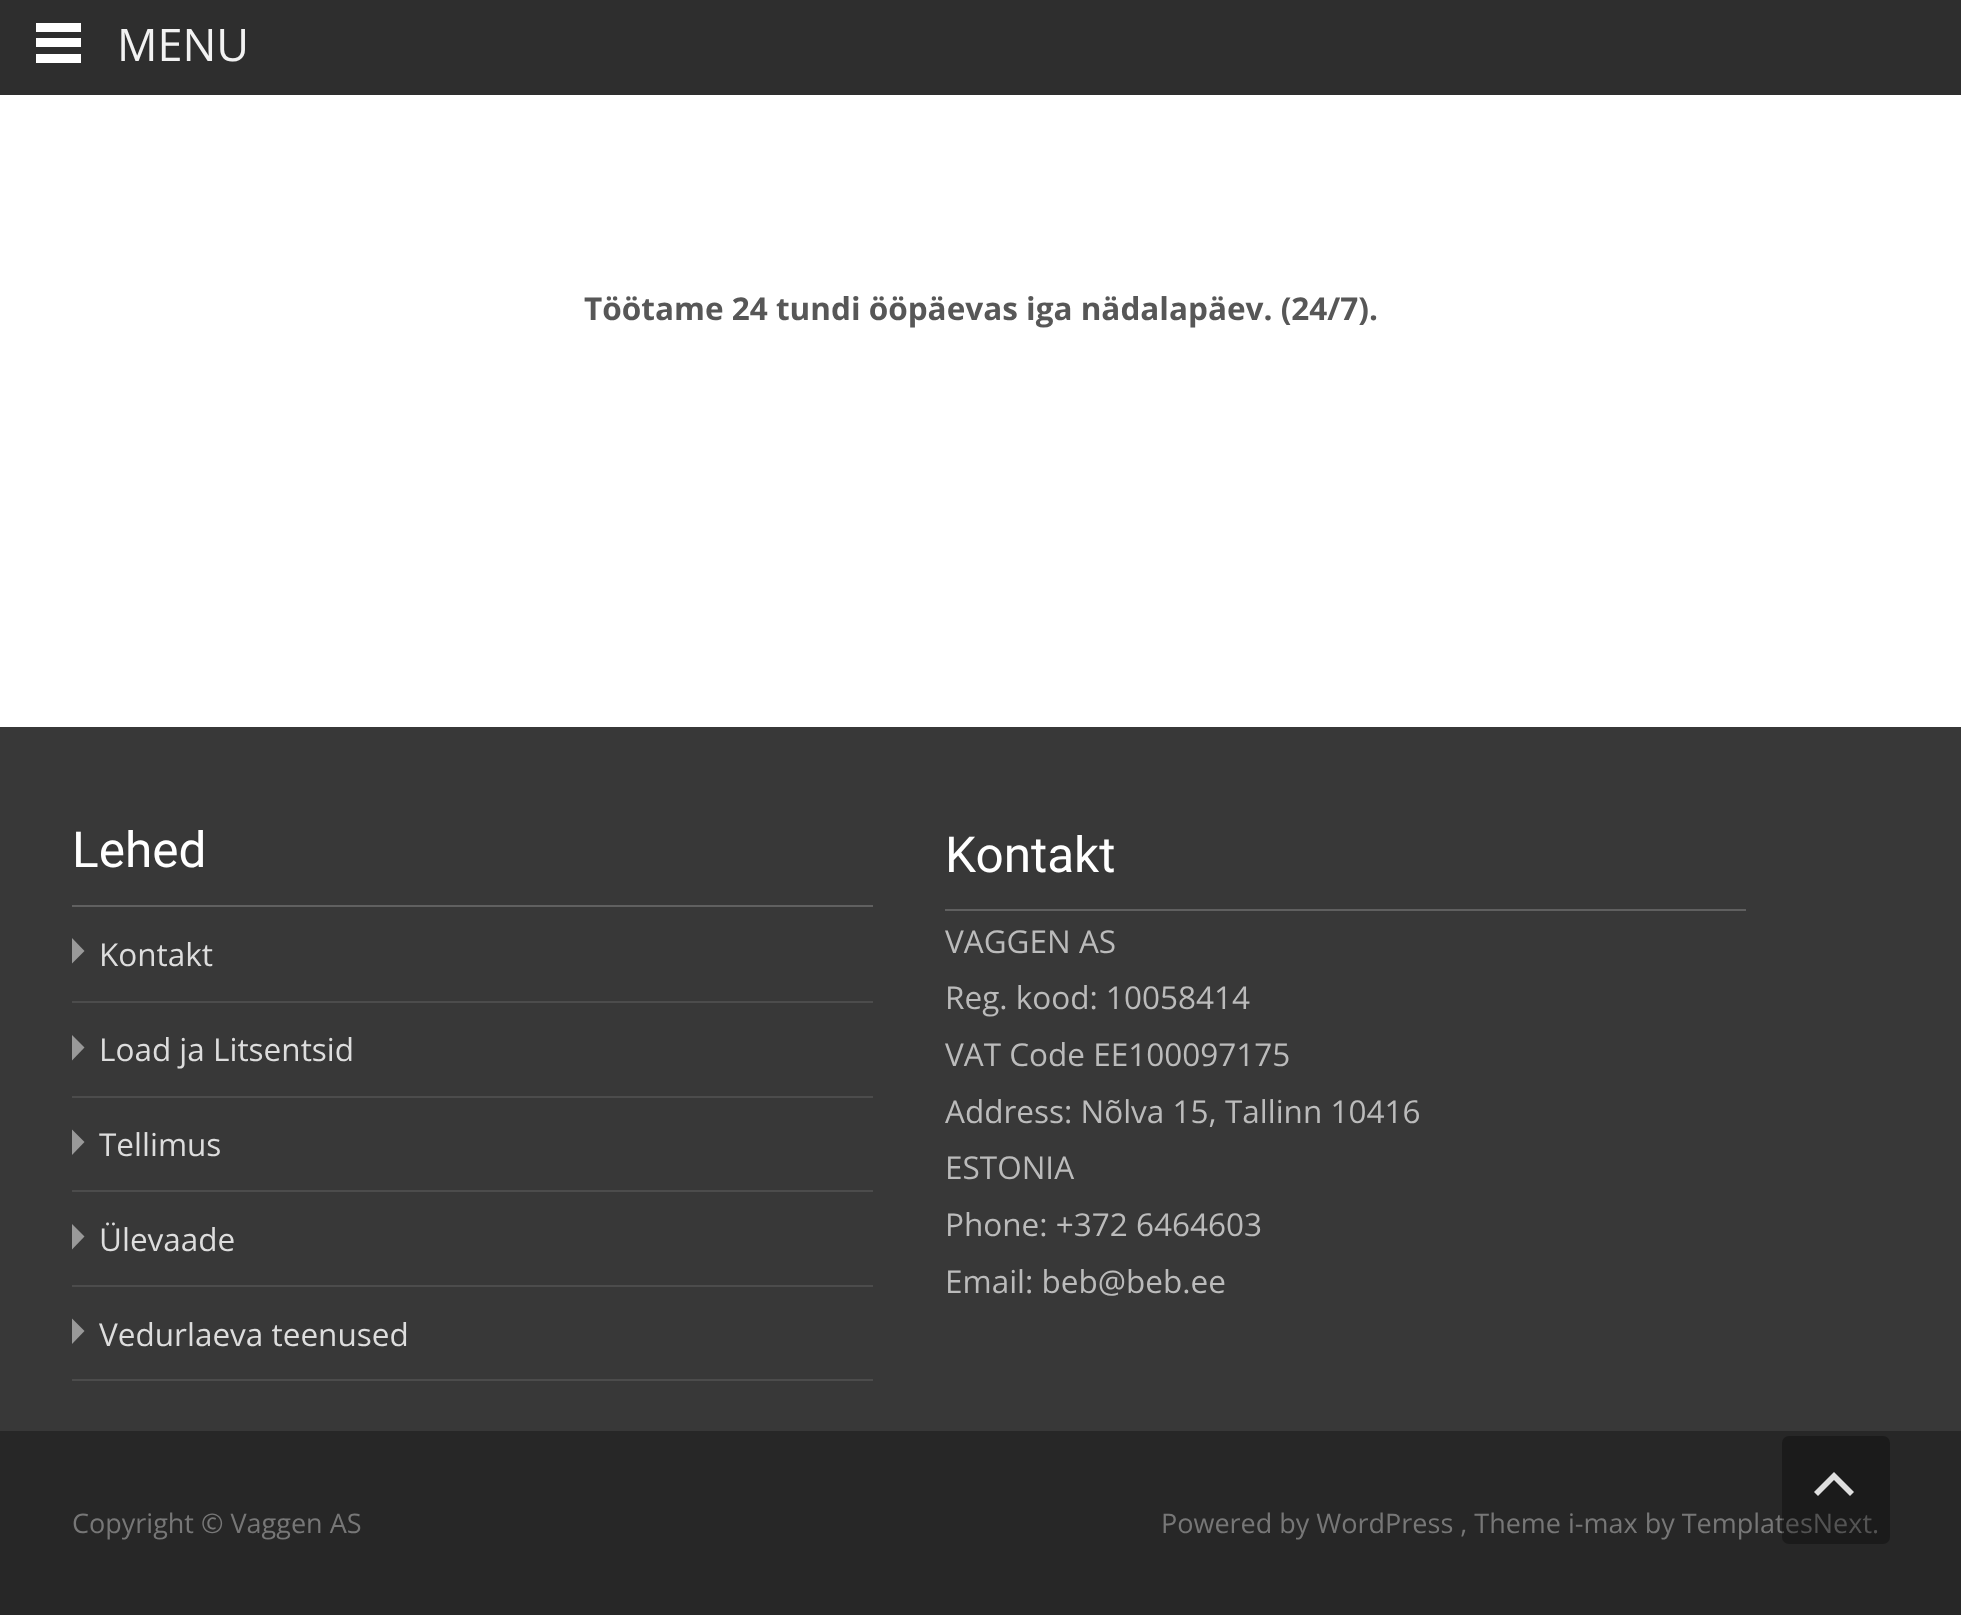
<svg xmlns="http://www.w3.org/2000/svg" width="1961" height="1615">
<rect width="100%" height="100%" fill="#fff"/>
<rect width="1961" height="95" fill="#2e2e2e"/>
<rect x="36" y="23" width="45" height="9" fill="#fff"/>
<rect x="36" y="38" width="45" height="9" fill="#fff"/>
<rect x="36" y="54" width="45" height="9" fill="#fff"/>
<text x="117" y="61" style="font-family:Open Sans;font-size:45px;fill:#f2f2f2">MENU</text>
<text x="584" y="320" style="font-family:Open Sans;font-size:31.5px;font-weight:bold;fill:#575757">Töötame 24 tundi ööpäevas iga nädalapäev. (24/7).</text>
<rect y="1431" width="1961" height="184" fill="#272727"/>
<rect y="727" width="1961" height="704" fill="#383838"/>
<rect x="72" y="905" width="801" height="2" fill="#606060"/>
<text x="72" y="867" style="font-family:Roboto;font-size:49.5px;fill:#fff">Lehed</text>
<rect x="72" y="1001" width="801" height="2" fill="#4c4c4c"/>
<path d="M72 963.5l12.5-12.5l-12.5-13z" fill="#999"/>
<text x="99" y="966" style="font-family:Open Sans;font-size:31.5px;fill:#ddd">Kontakt</text>
<rect x="72" y="1096" width="801" height="2" fill="#4c4c4c"/>
<path d="M72 1060.5l12.5-13l-12.5-12.5z" fill="#999"/>
<text x="99" y="1061" style="font-family:Open Sans;font-size:31.5px;fill:#ddd">Load ja Litsentsid</text>
<rect x="72" y="1190" width="801" height="2" fill="#4c4c4c"/>
<path d="M72 1155l12.5-13l-12.5-12.5z" fill="#999"/>
<text x="99" y="1156" style="font-family:Open Sans;font-size:31.5px;fill:#ddd">Tellimus</text>
<rect x="72" y="1285" width="801" height="2" fill="#4c4c4c"/>
<path d="M72 1249.5l12.5-13l-12.5-12.5z" fill="#999"/>
<text x="99" y="1251" style="font-family:Open Sans;font-size:31.5px;fill:#ddd">Ülevaade</text>
<rect x="72" y="1379" width="801" height="2" fill="#4c4c4c"/>
<path d="M72 1344l12.5-13l-12.5-12.5z" fill="#999"/>
<text x="99" y="1346" style="font-family:Open Sans;font-size:31.5px;fill:#ddd">Vedurlaeva teenused</text>
<rect x="945" y="909" width="801" height="2" fill="#606060"/>
<text x="945" y="872" style="font-family:Roboto;font-size:49.5px;fill:#fff">Kontakt</text>
<text x="945" y="953" style="font-family:Open Sans;font-size:31.5px;fill:#bbb">VAGGEN AS</text>
<text x="945" y="1009" style="font-family:Open Sans;font-size:31.5px;fill:#bbb">Reg. kood: 10058414</text>
<text x="945" y="1066" style="font-family:Open Sans;font-size:31.5px;fill:#bbb">VAT Code EE100097175</text>
<text x="945" y="1123" style="font-family:Open Sans;font-size:31.5px;fill:#bbb">Address: Nõlva 15, Tallinn 10416</text>
<text x="945" y="1179" style="font-family:Open Sans;font-size:31.5px;fill:#bbb">ESTONIA</text>
<text x="945" y="1236" style="font-family:Open Sans;font-size:31.5px;fill:#bbb">Phone: +372 6464603</text>
<text x="945" y="1293" style="font-family:Open Sans;font-size:31.5px;fill:#bbb">Email: beb@beb.ee</text>
<text x="72" y="1533" style="font-family:Open Sans;font-size:27px;fill:#777">Copyright © Vaggen AS</text>
<text x="1161" y="1533" style="font-family:Open Sans;font-size:27px;fill:#777">Powered by WordPress , Theme i-max by TemplatesNext.</text>
<rect x="1782" y="1436" width="108" height="108" rx="7" fill="#0000004d"/>
<path d="M1814 1492l20-20l20 20l-4 4l-16-16l-16 16z" fill="#dfdfdf"/>
</svg>
